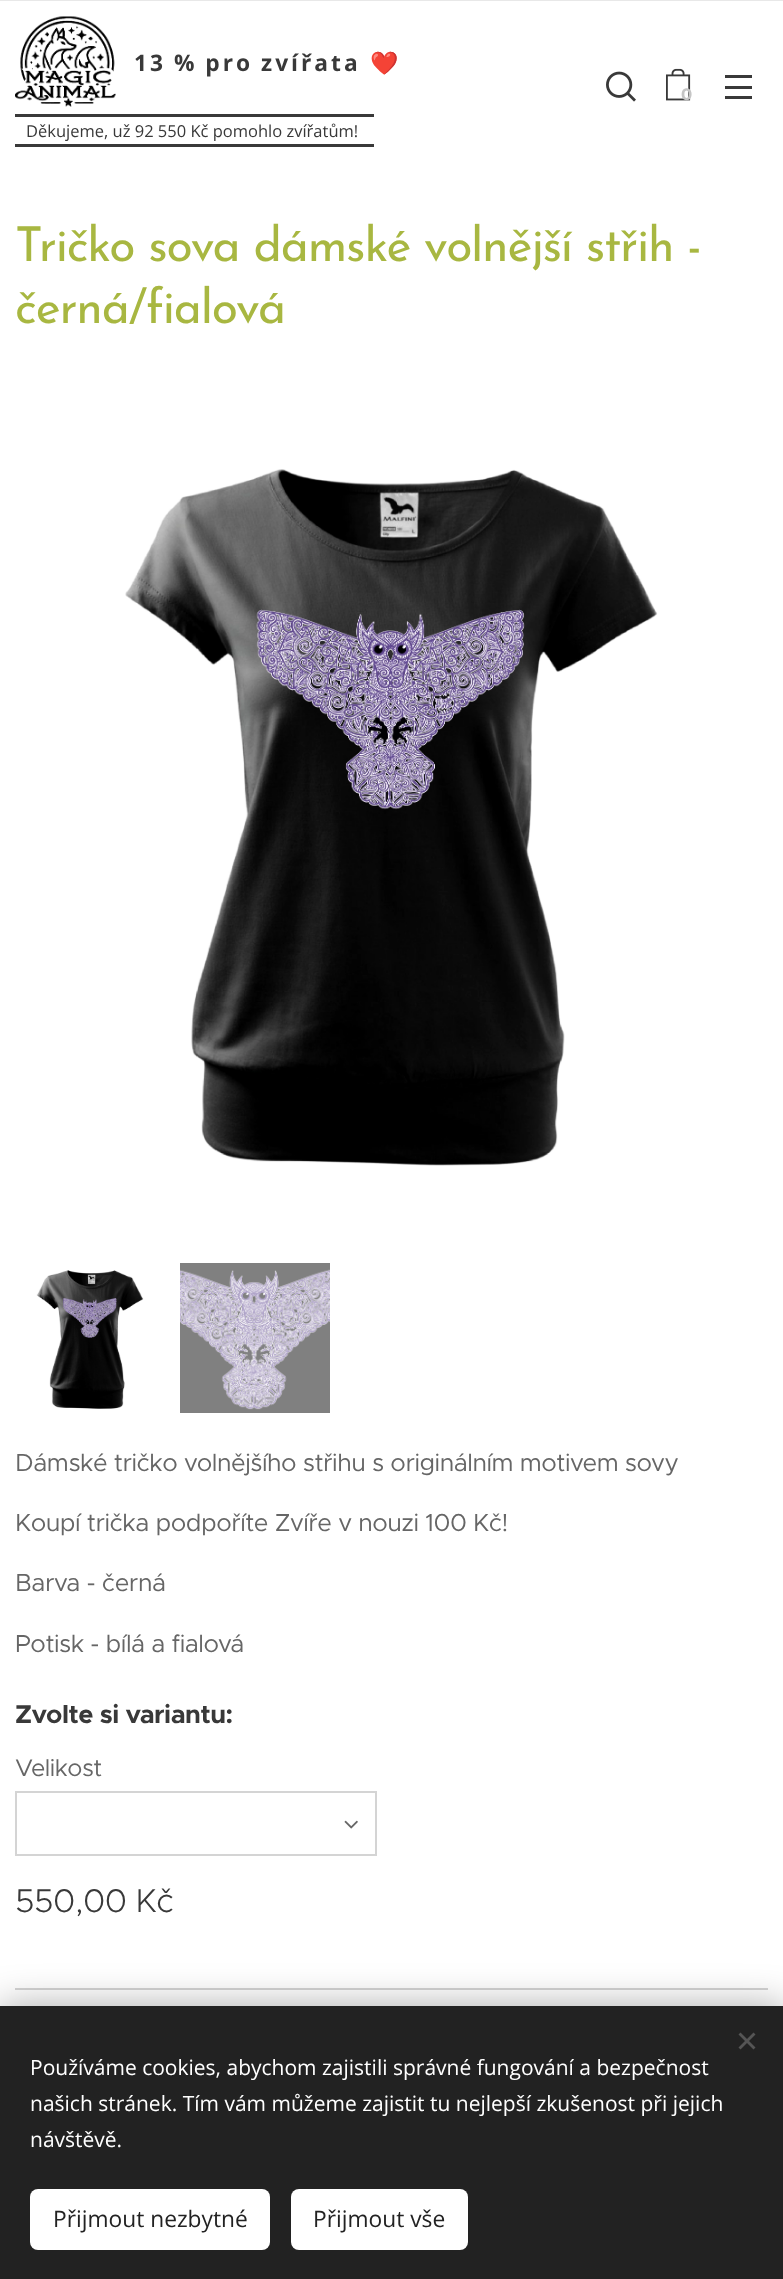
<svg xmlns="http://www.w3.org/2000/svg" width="783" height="2279">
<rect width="100%" height="100%" fill="#fff"/>
<image x="15" y="16" width="101" height="91" href="media/1.png"/>
<text x="134" y="71" word-spacing="-1" style="font-family:Open Sans;font-size:22.75px;font-weight:bold;letter-spacing:3px;fill:#393939">13 % pro zvířata</text>
<text x="370" y="71" style="font-family:Noto Color Emoji;font-size:22.75px;font-weight:bold;letter-spacing:3px;fill:#393939">❤️</text>
<rect x="15" y="114" width="359" height="3" fill="#393939"/>
<rect x="15" y="144" width="359" height="3" fill="#393939"/>
<text x="26" y="137" style="font-family:Open Sans;font-size:16.5px;fill:#393939">Děkujeme, už 92 550 Kč pomohlo zvířatům!</text>
<rect width="783" height="1" fill="#e8e8e8"/>
<image x="606" y="71" width="30" height="31" href="media/2.png"/>
<image x="666" y="68" width="25" height="33" href="media/3.png"/>
<text x="681" y="100" style="font-family:Montserrat;font-size:16.5px;font-weight:bold;fill:#c5c5c5">0</text>
<rect x="725" y="86" width="27" height="3" fill="#393939"/>
<rect x="725" y="75" width="27" height="3" fill="#393939"/>
<rect x="725" y="96" width="27" height="3" fill="#393939"/>
<text x="15" y="261" style="font-family:Josefin Sans;font-size:48px;letter-spacing:-1.2px;fill:#a8b741">Tričko sova dámské volnější střih -</text>
<text x="15" y="323" style="font-family:Josefin Sans;font-size:48px;letter-spacing:-1.2px;fill:#a8b741">černá/fialová</text>
<image x="125" y="469" width="533" height="697" href="media/4.png"/>
<image x="36" y="1270" width="108" height="139" href="media/5.png"/>
<image x="180" y="1263" width="150" height="150" href="media/6.png"/>
<text x="15" y="1471" style="font-family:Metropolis;font-size:24.6px;letter-spacing:-0.48px;fill:#666">Dámské tričko volnějšího střihu s originálním motivem sovy</text>
<text x="15" y="1531" style="font-family:Metropolis;font-size:24.6px;letter-spacing:-0.48px;fill:#666">Koupí trička podpoříte Zvíře v nouzi 100 Kč!</text>
<text x="15" y="1591" style="font-family:Metropolis;font-size:24.6px;letter-spacing:-0.48px;fill:#666">Barva - černá</text>
<text x="15" y="1652" style="font-family:Metropolis;font-size:24.6px;letter-spacing:-0.48px;fill:#666">Potisk - bílá a fialová</text>
<text x="15" y="1723" style="font-family:Metropolis;font-size:25.75px;font-weight:bold;letter-spacing:-0.48px;fill:#393939">Zvolte si variantu:</text>
<text x="15" y="1776" style="font-family:Metropolis;font-size:24px;letter-spacing:-0.48px;fill:#666">Velikost</text>
<rect x="16" y="1792" width="360" height="63" fill="none" stroke="#d4d4d4" stroke-width="2"/>
<image x="344" y="1820" width="14" height="9" href="media/7.png"/>
<text x="15" y="1912" style="font-family:Metropolis;font-size:33px;font-weight:300;letter-spacing:-0.48px;fill:#393939">550,00 Kč</text>
<rect x="15" y="1988" width="753" height="2" fill="#d4d4d4"/>
<rect y="2006" width="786" height="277" fill="#00000054" filter="blur(19px)"/>
<rect y="2006" width="783" height="273" fill="#222"/>
<path d="M738.5 2047.5l15-15l2 2l-15 15z" fill="#555"/>
<path d="M740.5 2032.5l15 15l-2 2l-15-15z" fill="#555"/>
<text x="30" y="2075" style="font-family:Open Sans;font-size:21px;fill:#fff">Používáme cookies, abychom zajistili správné fungování a bezpečnost</text>
<text x="30" y="2111" style="font-family:Open Sans;font-size:21px;fill:#fff">našich stránek. Tím vám můžeme zajistit tu nejlepší zkušenost při jejich</text>
<text x="30" y="2147" style="font-family:Open Sans;font-size:21px;fill:#fff">návštěvě.</text>
<rect x="30" y="2189" width="240" height="61" rx="8" fill="#fff"/>
<text x="53" y="2227" style="font-family:Open Sans;font-size:22.75px;fill:#222">Přijmout nezbytné</text>
<rect x="291" y="2189" width="177" height="61" rx="8" fill="#fff"/>
<text x="313" y="2227" style="font-family:Open Sans;font-size:22.75px;fill:#222">Přijmout vše</text>
</svg>
